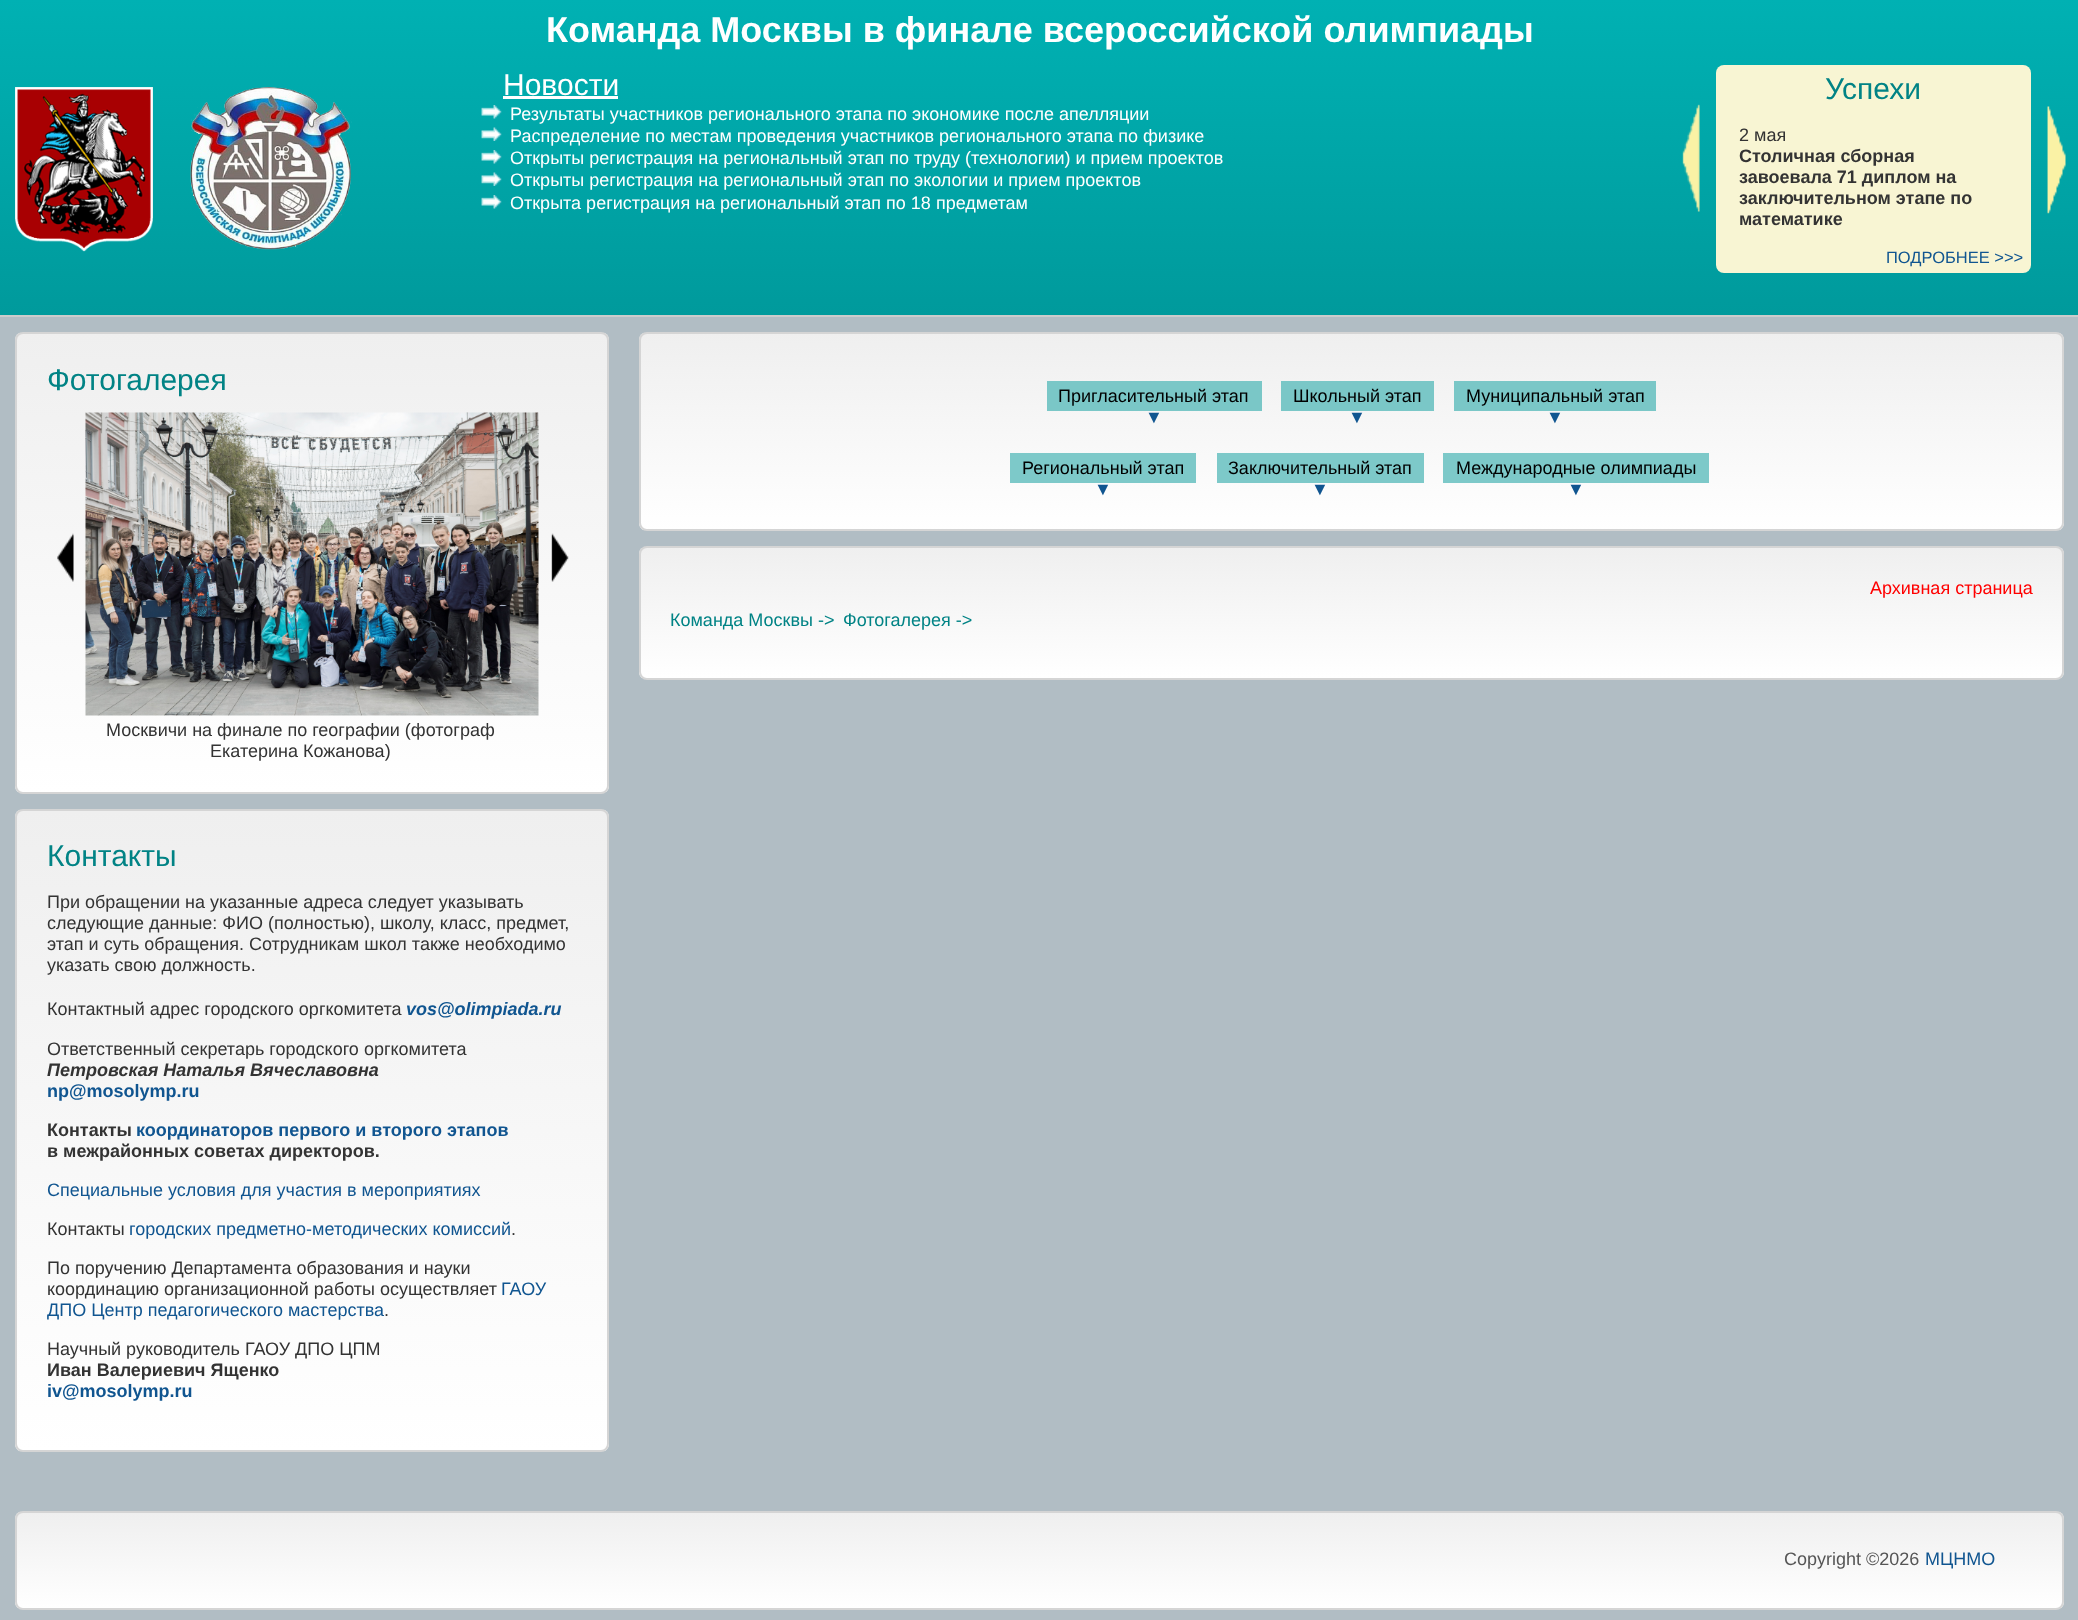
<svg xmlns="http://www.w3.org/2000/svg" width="2078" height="1620">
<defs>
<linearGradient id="g1" gradientUnits="userSpaceOnUse" x1="0" y1="0" x2="0" y2="315"><stop offset="0" stop-color="#00b1b3"/><stop offset="1" stop-color="#009a9c"/></linearGradient>
<clipPath id="clip1"><rect x="15" y="332" width="594" height="462" rx="8"/></clipPath>
<linearGradient id="g2" gradientUnits="userSpaceOnUse" x1="17" y1="333" x2="17" y2="792"><stop offset="0" stop-color="#efefef"/><stop offset="1" stop-color="#fff"/></linearGradient>
<clipPath id="clip2"><rect x="15" y="809" width="594" height="643" rx="8"/></clipPath>
<linearGradient id="g3" gradientUnits="userSpaceOnUse" x1="17" y1="810" x2="17" y2="1451"><stop offset="0" stop-color="#efefef"/><stop offset="1" stop-color="#fff"/></linearGradient>
<clipPath id="clip3"><rect x="639" y="332" width="1425" height="199" rx="8"/></clipPath>
<linearGradient id="g4" gradientUnits="userSpaceOnUse" x1="641" y1="333" x2="641" y2="530"><stop offset="0" stop-color="#efefef"/><stop offset="1" stop-color="#fff"/></linearGradient>
<clipPath id="clip4"><rect x="639" y="546" width="1425" height="134" rx="8"/></clipPath>
<linearGradient id="g5" gradientUnits="userSpaceOnUse" x1="641" y1="548" x2="641" y2="678"><stop offset="0" stop-color="#efefef"/><stop offset="1" stop-color="#fff"/></linearGradient>
<clipPath id="clip5"><rect x="15" y="1511" width="2049" height="99" rx="8"/></clipPath>
<linearGradient id="g6" gradientUnits="userSpaceOnUse" x1="17" y1="1512" x2="17" y2="1608"><stop offset="0" stop-color="#efefef"/><stop offset="1" stop-color="#fff"/></linearGradient>
</defs>
<rect width="100%" height="100%" fill="#b1bdc4"/>
<rect width="2078" height="315" fill="url(#g1)"/>
<rect y="315" width="2078" height="2" fill="#ccc"/>
<text x="546" y="42" style="font-family:Liberation Sans;font-size:36px;font-weight:bold;fill:#fff">Команда Москвы в финале всероссийской олимпиады</text>
<image x="15" y="87" width="138" height="165" href="media/1.png"/>
<image x="190" y="87" width="162" height="163" href="media/2.png"/>
<text x="503" y="95" style="font-family:Liberation Sans;font-size:30px;fill:#fff">Новости</text>
<rect x="503" y="96" width="115" height="3" fill="#fff"/>
<image x="481" y="105" width="21" height="14" href="media/3.png"/>
<text x="510" y="120" style="font-family:Liberation Sans;font-size:18px;fill:#fff">Результаты участников регионального этапа по экономике после апелляции</text>
<image x="481" y="127" width="21" height="14" href="media/4.png"/>
<text x="510" y="142" style="font-family:Liberation Sans;font-size:18px;fill:#fff">Распределение по местам проведения участников регионального этапа по физике</text>
<image x="481" y="150" width="21" height="14" href="media/5.png"/>
<text x="510" y="164" style="font-family:Liberation Sans;font-size:18px;fill:#fff">Открыты регистрация на региональный этап по труду (технологии) и прием проектов</text>
<image x="481" y="172" width="21" height="14" href="media/6.png"/>
<text x="510" y="186" style="font-family:Liberation Sans;font-size:18px;fill:#fff">Открыты регистрация на региональный этап по экологии и прием проектов</text>
<image x="481" y="195" width="21" height="14" href="media/7.png"/>
<text x="510" y="209" style="font-family:Liberation Sans;font-size:18px;fill:#fff">Открыта регистрация на региональный этап по 18 предметам</text>
<image x="1682" y="104" width="18" height="108" href="media/8.png"/>
<rect x="1716" y="65" width="315" height="208" rx="8" fill="#f8f5d3"/>
<text x="1825" y="99" style="font-family:Liberation Sans;font-size:30px;fill:#018385">Успехи</text>
<text x="1739" y="141" style="font-family:Liberation Sans;font-size:18px;fill:#333">2 мая</text>
<text x="1739" y="162" style="font-family:Liberation Sans;font-size:18px;font-weight:bold;fill:#333">Столичная сборная</text>
<text x="1739" y="183" style="font-family:Liberation Sans;font-size:18px;font-weight:bold;fill:#333">завоевала 71 диплом на</text>
<text x="1739" y="204" style="font-family:Liberation Sans;font-size:18px;font-weight:bold;fill:#333">заключительном этапе по</text>
<text x="1739" y="225" style="font-family:Liberation Sans;font-size:18px;font-weight:bold;fill:#333">математике</text>
<text x="1886" y="263" style="font-family:Liberation Sans;font-size:16.5px;fill:#105590">ПОДРОБНЕЕ &gt;&gt;&gt;</text>
<image x="2047" y="106" width="19" height="108" href="media/9.png"/>
<g clip-path="url(#clip1)">
<rect x="15" y="333" width="594" height="459" fill="url(#g2)"/>
</g>
<rect x="16" y="333" width="592" height="460" rx="7" fill="none" stroke="#d5d5d5" stroke-width="2"/>
<text x="47" y="390" style="font-family:Liberation Sans;font-size:30px;fill:#018385">Фотогалерея</text>
<image x="57" y="533" width="17" height="49" href="media/10.png"/>
<image x="551" y="533" width="18" height="49" href="media/11.png"/>
<image x="85" y="412" width="454" height="304" href="media/12.png"/>
<text x="106" y="736" style="font-family:Liberation Sans;font-size:18px;fill:#333">Москвичи на финале по географии (фотограф</text>
<text x="210" y="757" style="font-family:Liberation Sans;font-size:18px;fill:#333">Екатерина Кожанова)</text>
<g clip-path="url(#clip2)">
<rect x="15" y="810" width="594" height="641" fill="url(#g3)"/>
</g>
<rect x="16" y="810" width="592" height="641" rx="7" fill="none" stroke="#d5d5d5" stroke-width="2"/>
<text x="47" y="866" style="font-family:Liberation Sans;font-size:30px;fill:#018385">Контакты</text>
<text x="47" y="908" style="font-family:Liberation Sans;font-size:18px;fill:#333">При обращении на указанные адреса следует указывать</text>
<text x="47" y="929" style="font-family:Liberation Sans;font-size:18px;fill:#333">следующие данные: ФИО (полностью), школу, класс, предмет,</text>
<text x="47" y="950" style="font-family:Liberation Sans;font-size:18px;fill:#333">этап и суть обращения. Сотрудникам школ также необходимо</text>
<text x="47" y="971" style="font-family:Liberation Sans;font-size:18px;fill:#333">указать свою должность.</text>
<text x="47" y="1015" style="font-family:Liberation Sans;font-size:18px;fill:#333">Контактный адрес городского оргкомитета</text>
<text x="406" y="1015" style="font-family:Liberation Sans;font-size:18px;font-weight:bold;font-style:italic;fill:#105590">vos@olimpiada.ru</text>
<text x="47" y="1055" style="font-family:Liberation Sans;font-size:18px;fill:#333">Ответственный секретарь городского оргкомитета</text>
<text x="47" y="1076" style="font-family:Liberation Sans;font-size:18px;font-weight:bold;font-style:italic;fill:#333">Петровская Наталья Вячеславовна</text>
<text x="47" y="1097" style="font-family:Liberation Sans;font-size:18px;font-weight:bold;fill:#105590">np@mosolymp.ru</text>
<text x="47" y="1136" style="font-family:Liberation Sans;font-size:18px;font-weight:bold;fill:#333">Контакты</text>
<text x="136" y="1136" style="font-family:Liberation Sans;font-size:18px;font-weight:bold;fill:#105590">координаторов первого и второго этапов</text>
<text x="47" y="1157" style="font-family:Liberation Sans;font-size:18px;font-weight:bold;fill:#333">в межрайонных советах директоров.</text>
<text x="47" y="1196" style="font-family:Liberation Sans;font-size:18px;fill:#105590">Специальные условия для участия в мероприятиях</text>
<text x="47" y="1235" style="font-family:Liberation Sans;font-size:18px;fill:#333">Контакты</text>
<text x="129" y="1235" style="font-family:Liberation Sans;font-size:18px;fill:#105590">городских предметно-методических комиссий</text>
<text x="511" y="1235" style="font-family:Liberation Sans;font-size:18px;fill:#333">.</text>
<text x="47" y="1274" style="font-family:Liberation Sans;font-size:18px;fill:#333">По поручению Департамента образования и науки</text>
<text x="47" y="1295" style="font-family:Liberation Sans;font-size:18px;fill:#333">координацию организационной работы осуществляет</text>
<text x="501" y="1295" style="font-family:Liberation Sans;font-size:18px;fill:#105590">ГАОУ</text>
<text x="47" y="1316" style="font-family:Liberation Sans;font-size:18px;fill:#105590">ДПО Центр педагогического мастерства</text>
<text x="384" y="1316" style="font-family:Liberation Sans;font-size:18px;fill:#333">.</text>
<text x="47" y="1355" style="font-family:Liberation Sans;font-size:18px;fill:#333">Научный руководитель ГАОУ ДПО ЦПМ</text>
<text x="47" y="1376" style="font-family:Liberation Sans;font-size:18px;font-weight:bold;fill:#333">Иван Валериевич Ященко</text>
<text x="47" y="1397" style="font-family:Liberation Sans;font-size:18px;font-weight:bold;fill:#105590">iv@mosolymp.ru</text>
<g clip-path="url(#clip3)">
<rect x="639" y="333" width="1425" height="197" fill="url(#g4)"/>
</g>
<rect x="640" y="333" width="1423" height="197" rx="7" fill="none" stroke="#d5d5d5" stroke-width="2"/>
<rect x="1047" y="381" width="215" height="30" fill="#7ac7c7"/>
<text x="1058" y="402" style="font-family:Liberation Sans;font-size:18px;fill:#000">Пригласительный этап</text>
<text x="1145" y="423" style="font-family:Liberation Sans;font-size:18px;fill:#105590">▼</text>
<rect x="1281" y="381" width="153" height="30" fill="#7ac7c7"/>
<text x="1293" y="402" style="font-family:Liberation Sans;font-size:18px;fill:#000">Школьный этап</text>
<text x="1348" y="423" style="font-family:Liberation Sans;font-size:18px;fill:#105590">▼</text>
<rect x="1454" y="381" width="202" height="30" fill="#7ac7c7"/>
<text x="1466" y="402" style="font-family:Liberation Sans;font-size:18px;fill:#000">Муниципальный этап</text>
<text x="1546" y="423" style="font-family:Liberation Sans;font-size:18px;fill:#105590">▼</text>
<rect x="1010" y="453" width="186" height="30" fill="#7dc9c9"/>
<text x="1022" y="474" style="font-family:Liberation Sans;font-size:18px;fill:#000">Региональный этап</text>
<text x="1094" y="495" style="font-family:Liberation Sans;font-size:18px;fill:#105590">▼</text>
<rect x="1217" y="453" width="207" height="30" fill="#7dc9c9"/>
<text x="1228" y="474" style="font-family:Liberation Sans;font-size:18px;fill:#000">Заключительный этап</text>
<text x="1311" y="495" style="font-family:Liberation Sans;font-size:18px;fill:#105590">▼</text>
<rect x="1443" y="453" width="266" height="30" fill="#7dc9c9"/>
<text x="1456" y="474" style="font-family:Liberation Sans;font-size:18px;fill:#000">Международные олимпиады</text>
<text x="1567" y="495" style="font-family:Liberation Sans;font-size:18px;fill:#105590">▼</text>
<g clip-path="url(#clip4)">
<rect x="639" y="548" width="1425" height="130" fill="url(#g5)"/>
</g>
<rect x="640" y="547" width="1423" height="132" rx="7" fill="none" stroke="#d5d5d5" stroke-width="2"/>
<text x="1870" y="594" style="font-family:Liberation Sans;font-size:18px;fill:#f00">Архивная страница</text>
<text x="670" y="626" style="font-family:Liberation Sans;font-size:18px;fill:#018385">Команда Москвы -&gt;</text>
<text x="843" y="626" style="font-family:Liberation Sans;font-size:18px;fill:#018385">Фотогалерея -&gt;</text>
<g clip-path="url(#clip5)">
<rect x="15" y="1512" width="2049" height="96" fill="url(#g6)"/>
</g>
<rect x="16" y="1512" width="2047" height="97" rx="7" fill="none" stroke="#d5d5d5" stroke-width="2"/>
<text x="1784" y="1565" style="font-family:Liberation Sans;font-size:18px;fill:#565656">Copyright ©2026</text>
<text x="1925" y="1565" style="font-family:Liberation Sans;font-size:18px;fill:#105590">МЦНМО</text>
</svg>
